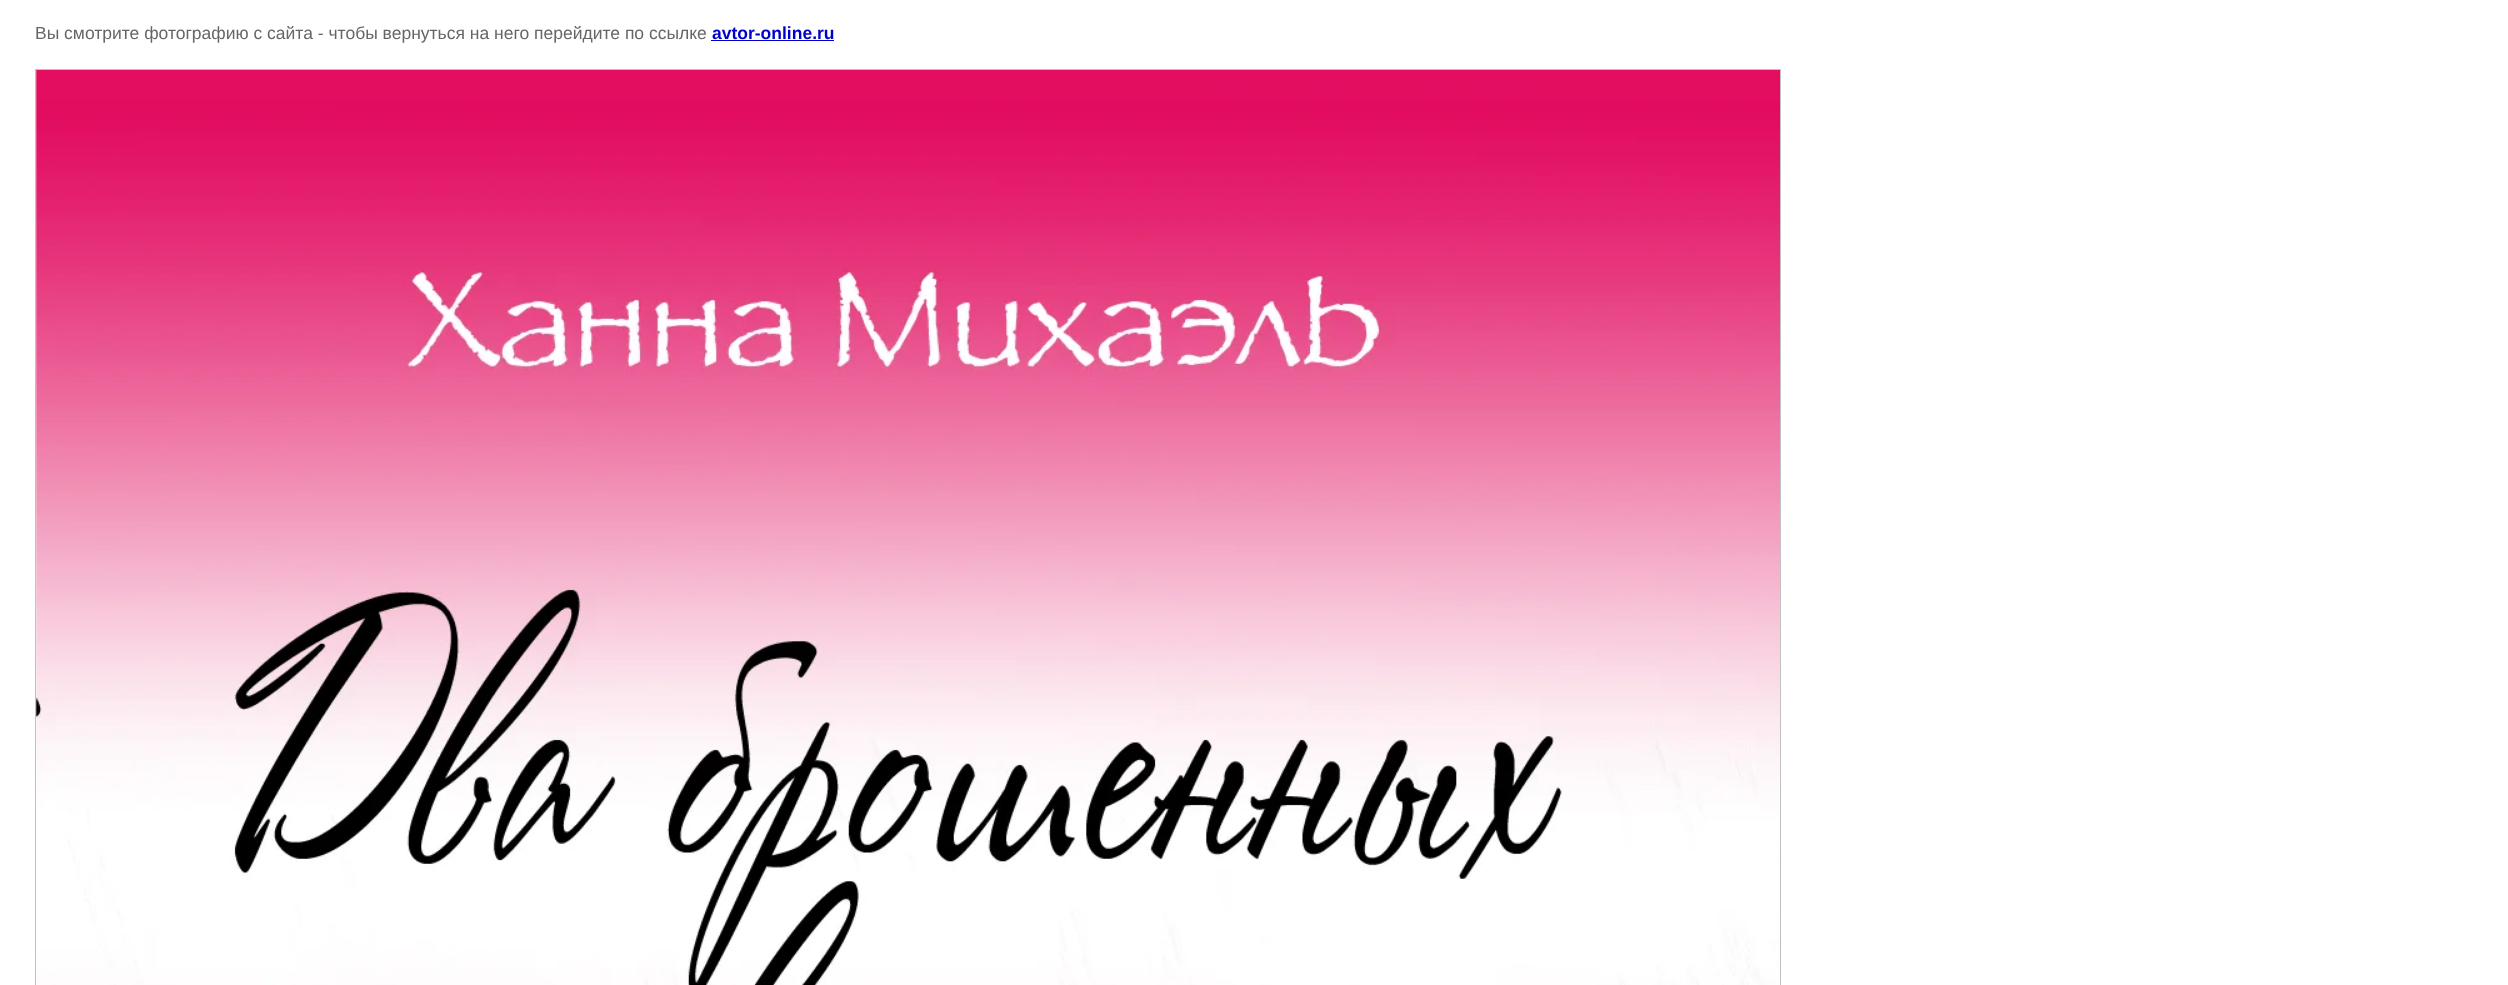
<svg xmlns="http://www.w3.org/2000/svg" width="2508" height="985">
<rect width="100%" height="100%" fill="#fff"/>
<text x="35" y="39" style="font-family:Liberation Sans;font-size:17.5px;fill:#666">Вы смотрите фотографию с сайта - чтобы вернуться на него перейдите по ссылке</text>
<text x="712" y="39" style="font-family:Liberation Sans;font-size:17.5px;font-weight:bold;fill:#00c">avtor-online.ru</text>
<rect x="711" y="40" width="123" height="1" fill="#00c"/>
<rect x="35.5" y="69.5" width="1745" height="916" fill="none" stroke="#c0c0c0"/>
<image x="36" y="70" width="1744" height="915" href="media/1.png"/>
</svg>
